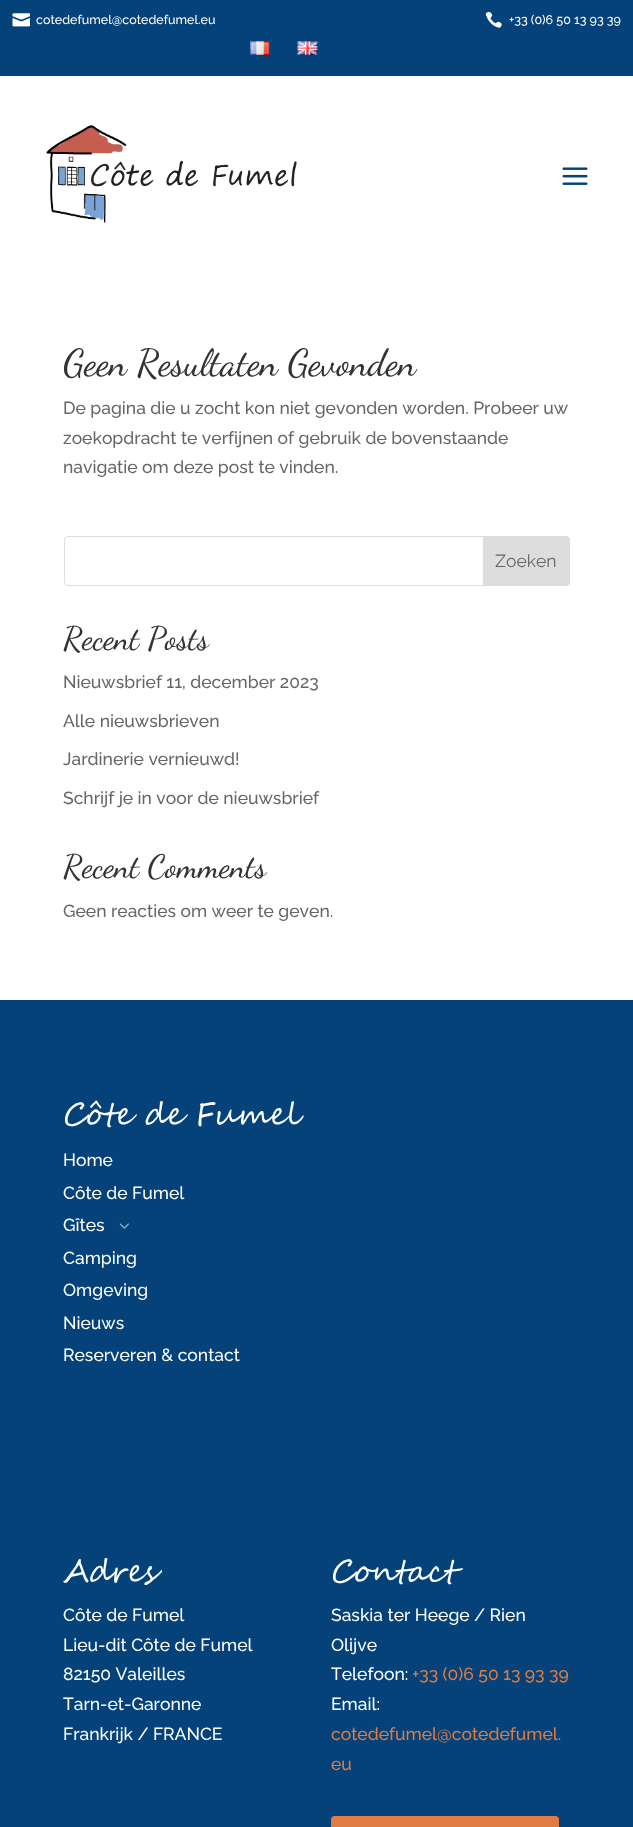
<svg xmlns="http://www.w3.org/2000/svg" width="633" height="1827">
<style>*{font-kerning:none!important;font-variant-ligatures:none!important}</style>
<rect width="100%" height="100%" fill="#fff"/>
<rect width="633" height="76" fill="#054279"/>
<image x="12" y="13" width="18" height="14" href="media/1.png"/>
<text x="36" y="24" style="font-family:Raleway;font-size:12.5px;font-weight:500;fill:#fff">cotedefumel@cotedefumel.eu</text>
<image x="485" y="11" width="17" height="17" href="media/2.png"/>
<text x="509" y="24" style="font-family:Raleway;font-size:12.5px;font-weight:500;fill:#fff">+33 (0)6 50 13 93 39</text>
<image x="250" y="41" width="20" height="14" href="media/3.png"/>
<image x="297" y="41" width="21" height="14" href="media/4.png"/>
<image x="46" y="125" width="251" height="98" href="media/5.png"/>
<image x="562" y="167" width="26" height="18" href="media/6.png"/>
<text x="63" y="375" style="font-family:Dancing Script;font-size:37.5px;font-weight:500;fill:#333">Geen Resultaten Gevonden</text>
<text x="63" y="414" style="font-family:Raleway;font-size:17.5px;font-weight:500;fill:#666">De pagina die u zocht kon niet gevonden worden. Probeer uw</text>
<text x="63" y="444" style="font-family:Raleway;font-size:17.5px;font-weight:500;fill:#666">zoekopdracht te verfijnen of gebruik de bovenstaande</text>
<text x="63" y="473" style="font-family:Raleway;font-size:17.5px;font-weight:500;fill:#666">navigatie om deze post te vinden.</text>
<rect x="64.5" y="536.5" width="505" height="49" rx="3.5" fill="none" stroke="#ddd"/>
<path d="M483.5 536.5h82.5c2 0 3.5 1.5 3.5 3.5v42c0 2-1.5 3.5-3.5 3.5h-82.5z" fill="#ddd" stroke="#ddd"/>
<text x="495" y="567" style="font-family:Raleway;font-size:17.5px;fill:#666">Zoeken</text>
<text x="63" y="649" style="font-family:Dancing Script;font-size:32.5px;font-weight:500;fill:#333">Recent Posts</text>
<text x="63" y="688" style="font-family:Raleway;font-size:17.5px;font-weight:500;fill:#666">Nieuwsbrief 11, december 2023</text>
<text x="63" y="727" style="font-family:Raleway;font-size:17.5px;font-weight:500;fill:#666">Alle nieuwsbrieven</text>
<text x="63" y="765" style="font-family:Raleway;font-size:17.5px;font-weight:500;fill:#666">Jardinerie vernieuwd!</text>
<text x="63" y="804" style="font-family:Raleway;font-size:17.5px;font-weight:500;fill:#666">Schrijf je in voor de nieuwsbrief</text>
<text x="63" y="877" style="font-family:Dancing Script;font-size:32.5px;font-weight:500;fill:#333">Recent Comments</text>
<text x="63" y="917" style="font-family:Raleway;font-size:17.5px;font-weight:500;fill:#666">Geen reacties om weer te geven.</text>
<rect y="1000" width="633" height="827" fill="#054279"/>
<text x="63" y="1125" style="font-family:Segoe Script;font-size:31.25px;fill:#fff">Côte de Fumel</text>
<text x="63" y="1166" style="font-family:Raleway;font-size:17.5px;font-weight:500;fill:#fff">Home</text>
<text x="63" y="1199" style="font-family:Raleway;font-size:17.5px;font-weight:500;fill:#fff">Côte de Fumel</text>
<text x="63" y="1231" style="font-family:Raleway;font-size:17.5px;font-weight:500;fill:#fff">Gîtes</text>
<image x="119" y="1223" width="10" height="6" href="media/7.png"/>
<text x="63" y="1264" style="font-family:Raleway;font-size:17.5px;font-weight:500;fill:#fff">Camping</text>
<text x="63" y="1296" style="font-family:Raleway;font-size:17.5px;font-weight:500;fill:#fff">Omgeving</text>
<text x="63" y="1329" style="font-family:Raleway;font-size:17.5px;font-weight:500;fill:#fff">Nieuws</text>
<text x="63" y="1361" style="font-family:Raleway;font-size:17.5px;font-weight:500;fill:#fff">Reserveren &amp; contact</text>
<text x="63" y="1582" style="font-family:Segoe Script;font-size:31.25px;fill:#fff">Adres</text>
<text x="63" y="1621" style="font-family:Raleway;font-size:17.5px;font-weight:500;fill:#fff">Côte de Fumel</text>
<text x="63" y="1651" style="font-family:Raleway;font-size:17.5px;font-weight:500;fill:#fff">Lieu-dit Côte de Fumel</text>
<text x="63" y="1680" style="font-family:Raleway;font-size:17.5px;font-weight:500;fill:#fff">82150 Valeilles</text>
<text x="63" y="1710" style="font-family:Raleway;font-size:17.5px;font-weight:500;fill:#fff">Tarn-et-Garonne</text>
<text x="63" y="1740" style="font-family:Raleway;font-size:17.5px;font-weight:500;fill:#fff">Frankrijk / FRANCE</text>
<text x="331" y="1582" style="font-family:Segoe Script;font-size:31.25px;fill:#fff">Contact</text>
<text x="331" y="1621" style="font-family:Raleway;font-size:17.5px;font-weight:500;fill:#fff">Saskia ter Heege / Rien</text>
<text x="331" y="1651" style="font-family:Raleway;font-size:17.5px;font-weight:500;fill:#fff">Olijve</text>
<text x="331" y="1680" style="font-family:Raleway;font-size:17.5px;font-weight:500;fill:#fff">Telefoon:</text>
<text x="412" y="1680" style="font-family:Raleway;font-size:17.5px;font-weight:500;fill:#e07c43">+33 (0)6 50 13 93 39</text>
<text x="331" y="1710" style="font-family:Raleway;font-size:17.5px;font-weight:500;fill:#fff">Email:</text>
<text x="331" y="1740" style="font-family:Raleway;font-size:17.5px;font-weight:500;fill:#e07c43">cotedefumel@cotedefumel.</text>
<text x="331" y="1770" style="font-family:Raleway;font-size:17.5px;font-weight:500;fill:#e07c43">eu</text>
<rect x="331" y="1816" width="228" height="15" rx="4" fill="#e07c43"/>
</svg>
